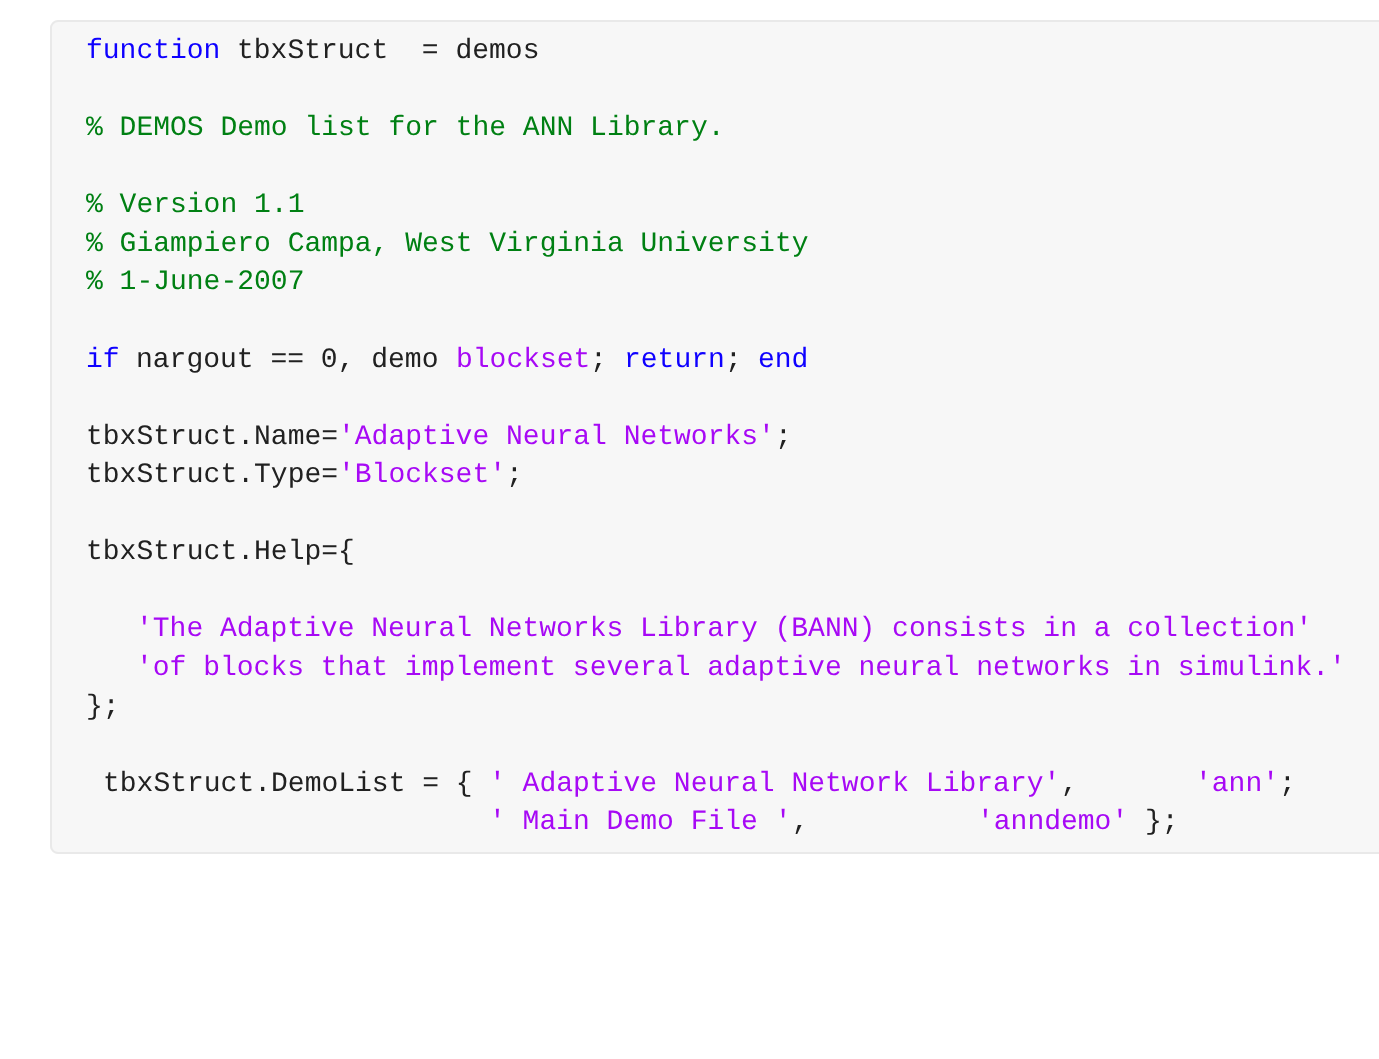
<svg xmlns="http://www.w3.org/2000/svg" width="1379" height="1059">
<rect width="100%" height="100%" fill="#fff"/>
<path d="M58 20h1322v834h-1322c-4.5 0-8-3.5-8-8v-818c0-4.5 3.5-8 8-8z" fill="#f7f7f7"/>
<path d="M58 20h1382c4 0 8 4 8 8v42h-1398v-42c0-4 4-8 8-8zm0 2h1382c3 0 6 3 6 6v42h-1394v-42c0-3 3-6 6-6z" fill="#e9e9e9" fill-rule="evenodd"/>
<text x="86" y="58" style="font-family:Liberation Mono;font-size:28px;fill:#0e00ff">function</text>
<text x="237" y="58" style="font-family:Liberation Mono;font-size:28px;fill:#212121" xml:space="preserve">tbxStruct  = demos</text>
<rect x="50" y="70" width="2" height="734" fill="#e9e9e9"/>
<text x="86" y="135" style="font-family:Liberation Mono;font-size:28px;fill:#008013">% DEMOS Demo list for the ANN Library.</text>
<text x="86" y="212" style="font-family:Liberation Mono;font-size:28px;fill:#008013">% Version 1.1</text>
<text x="86" y="251" style="font-family:Liberation Mono;font-size:28px;fill:#008013">% Giampiero Campa, West Virginia University</text>
<text x="86" y="289" style="font-family:Liberation Mono;font-size:28px;fill:#008013">% 1-June-2007</text>
<text x="86" y="367" style="font-family:Liberation Mono;font-size:28px;fill:#0e00ff">if</text>
<text x="136" y="367" style="font-family:Liberation Mono;font-size:28px;fill:#212121">nargout == 0, demo</text>
<text x="456" y="367" style="font-family:Liberation Mono;font-size:28px;fill:#a709f5">blockset</text>
<text x="590" y="367" style="font-family:Liberation Mono;font-size:28px;fill:#212121">;</text>
<text x="624" y="367" style="font-family:Liberation Mono;font-size:28px;fill:#0e00ff">return</text>
<text x="725" y="367" style="font-family:Liberation Mono;font-size:28px;fill:#212121">;</text>
<text x="758" y="367" style="font-family:Liberation Mono;font-size:28px;fill:#0e00ff">end</text>
<text x="86" y="444" style="font-family:Liberation Mono;font-size:28px;fill:#212121">tbxStruct.Name=</text>
<text x="338" y="444" style="font-family:Liberation Mono;font-size:28px;fill:#a709f5">'Adaptive Neural Networks'</text>
<text x="775" y="444" style="font-family:Liberation Mono;font-size:28px;fill:#212121">;</text>
<text x="86" y="482" style="font-family:Liberation Mono;font-size:28px;fill:#212121">tbxStruct.Type=</text>
<text x="338" y="482" style="font-family:Liberation Mono;font-size:28px;fill:#a709f5">'Blockset'</text>
<text x="506" y="482" style="font-family:Liberation Mono;font-size:28px;fill:#212121">;</text>
<text x="86" y="559" style="font-family:Liberation Mono;font-size:28px;fill:#212121">tbxStruct.Help={</text>
<text x="136" y="636" style="font-family:Liberation Mono;font-size:28px;fill:#a709f5">'The Adaptive Neural Networks Library (BANN) consists in a collection'</text>
<text x="136" y="675" style="font-family:Liberation Mono;font-size:28px;fill:#a709f5">'of blocks that implement several adaptive neural networks in simulink.'</text>
<text x="86" y="714" style="font-family:Liberation Mono;font-size:28px;fill:#212121">};</text>
<text x="103" y="791" style="font-family:Liberation Mono;font-size:28px;fill:#212121">tbxStruct.DemoList = {</text>
<text x="489" y="791" style="font-family:Liberation Mono;font-size:28px;fill:#a709f5">' Adaptive Neural Network Library'</text>
<text x="1061" y="791" style="font-family:Liberation Mono;font-size:28px;fill:#212121">,</text>
<text x="1195" y="791" style="font-family:Liberation Mono;font-size:28px;fill:#a709f5">'ann'</text>
<text x="1279" y="791" style="font-family:Liberation Mono;font-size:28px;fill:#212121">;</text>
<path d="M50 804h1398v42c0 4-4 8-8 8h-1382c-4 0-8-4-8-8zm2 0h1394v42c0 3-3 6-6 6h-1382c-3 0-6-3-6-6z" fill="#e9e9e9" fill-rule="evenodd"/>
<text x="489" y="829" style="font-family:Liberation Mono;font-size:28px;fill:#a709f5">' Main Demo File '</text>
<text x="792" y="829" style="font-family:Liberation Mono;font-size:28px;fill:#212121">,</text>
<text x="977" y="829" style="font-family:Liberation Mono;font-size:28px;fill:#a709f5">'anndemo'</text>
<text x="1145" y="829" style="font-family:Liberation Mono;font-size:28px;fill:#212121">};</text>
</svg>
